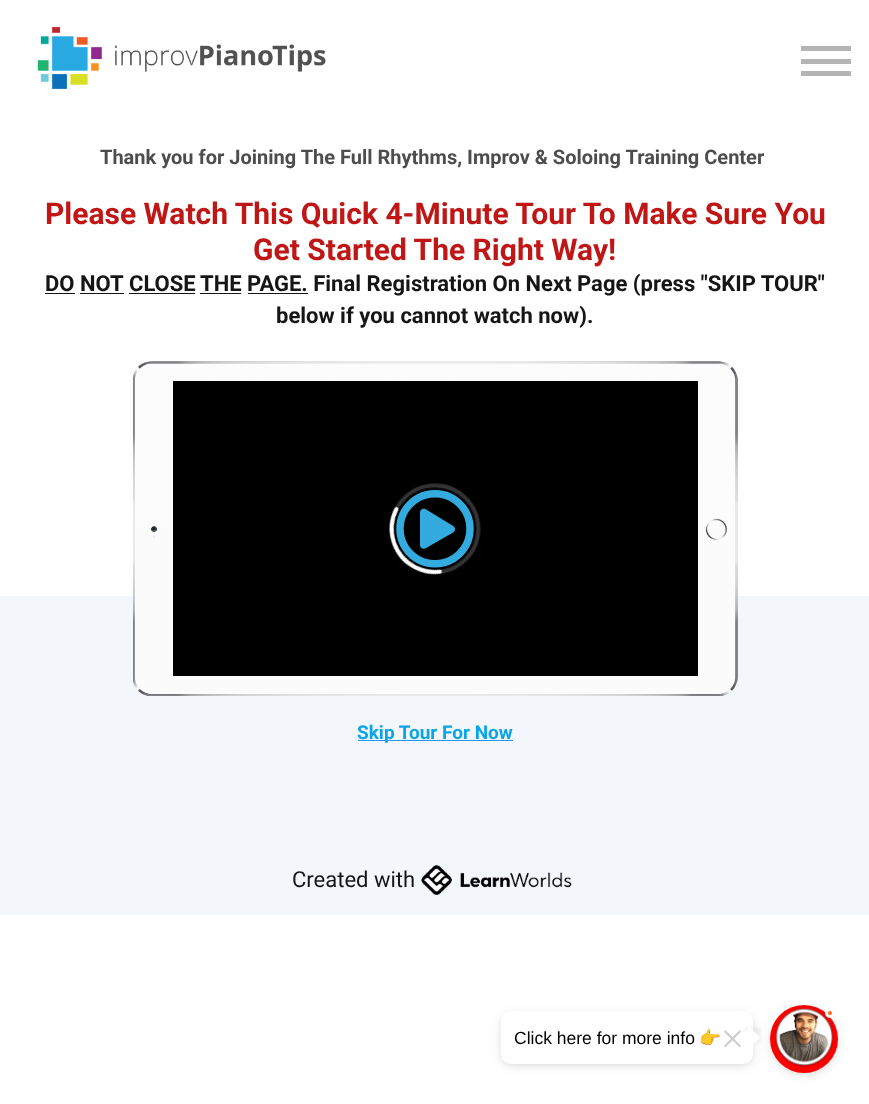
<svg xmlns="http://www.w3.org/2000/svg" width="869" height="1104">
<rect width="100%" height="100%" fill="#fff"/>
<image x="37" y="26" width="289" height="63" href="media/1.png"/>
<rect x="801" y="71" width="50" height="5" fill="#b4b4b4"/>
<rect x="801" y="46" width="50" height="5" fill="#b4b4b4"/>
<rect x="801" y="59" width="50" height="5" fill="#b4b4b4"/>
<text x="100" y="164" style="font-family:Roboto;font-size:20px;font-weight:bold;fill:#4d4d4d">Thank you for Joining The Full Rhythms, Improv &amp; Soloing Training Center</text>
<text x="45" y="224" style="font-family:Roboto;font-size:30px;font-weight:bold;fill:#c01616">Please Watch This Quick 4-Minute Tour To Make Sure You</text>
<text x="253" y="260" style="font-family:Roboto;font-size:30px;font-weight:bold;fill:#c01616">Get Started The Right Way!</text>
<text x="45" y="291" style="font-family:Roboto;font-size:22px;font-weight:bold;fill:#151515">DO NOT</text>
<rect x="45" y="293" width="30" height="1" fill="#151515"/>
<rect x="80" y="293" width="44" height="1" fill="#151515"/>
<text x="129" y="291" style="font-family:Roboto;font-size:22px;font-weight:bold;fill:#151515">CLOSE</text>
<rect x="129" y="293" width="66" height="1" fill="#151515"/>
<rect x="200" y="293" width="41" height="1" fill="#151515"/>
<text x="200" y="291" style="font-family:Roboto;font-size:22px;font-weight:bold;fill:#151515">THE PAGE. Final Registration On Next Page (press "SKIP TOUR"</text>
<rect x="248" y="293" width="60" height="1" fill="#151515"/>
<text x="276" y="323" style="font-family:Roboto;font-size:22px;font-weight:bold;fill:#151515">below if you cannot watch now).</text>
<rect y="596" width="869" height="319" fill="#f3f6fa"/>
<image x="133" y="361" width="605" height="335" href="media/2.png"/>
<rect x="173" y="381" width="525" height="295" fill="#000"/>
<image x="389" y="483" width="92" height="92" href="media/3.png"/>
<image x="396" y="490" width="78" height="78" href="media/4.png"/>
<rect x="358" y="740" width="155" height="1" fill="#2196f3"/>
<text x="357" y="739" style="font-family:Roboto;font-size:19px;font-weight:bold;fill:#0aa5e8">Skip Tour For Now</text>
<text x="292" y="887" style="font-family:Roboto;font-size:22px;fill:#151515">Created with</text>
<image x="421" y="865" width="151" height="30" href="media/5.png"/>
<rect x="770" y="1008" width="68" height="67" rx="33.5" fill="#00000014" filter="blur(2.5px)"/>
<rect x="770" y="1008" width="68" height="67" rx="33.5" fill="#0000000f" filter="blur(7.5px)"/>
<circle cx="804" cy="1039" r="34" fill="#f00"/>
<image x="774" y="1007" width="60" height="60" href="media/7.png"/>
<rect x="501" y="1014" width="252" height="52" rx="10" fill="#0000000f" filter="blur(7.5px)"/>
<rect x="501" y="1014" width="252" height="52" rx="10" fill="#00000014" filter="blur(2.5px)"/>
<rect x="501" y="1011" width="252" height="53" rx="10" fill="#fff"/>
<text x="514" y="1044" style="font-family:Liberation Sans;font-size:17.5px;fill:#000">Click here for more info</text>
<text x="699" y="1044" style="font-family:Noto Color Emoji;font-size:17.5px;fill:#000">👉</text>
<rect x="745" y="1028" width="15" height="15" fill="#0000000f" filter="blur(1.5px)"/>
<path d="M750 1027l10.5 10.5l-10.5 10.5l-10.5-10.5z" fill="#fff"/>
<image x="724" y="1030" width="17" height="17" href="media/6.png"/>
<circle cx="830" cy="1013" r="3.5" fill="#fa6b05" stroke="#fff" stroke-width="3"/>
</svg>
